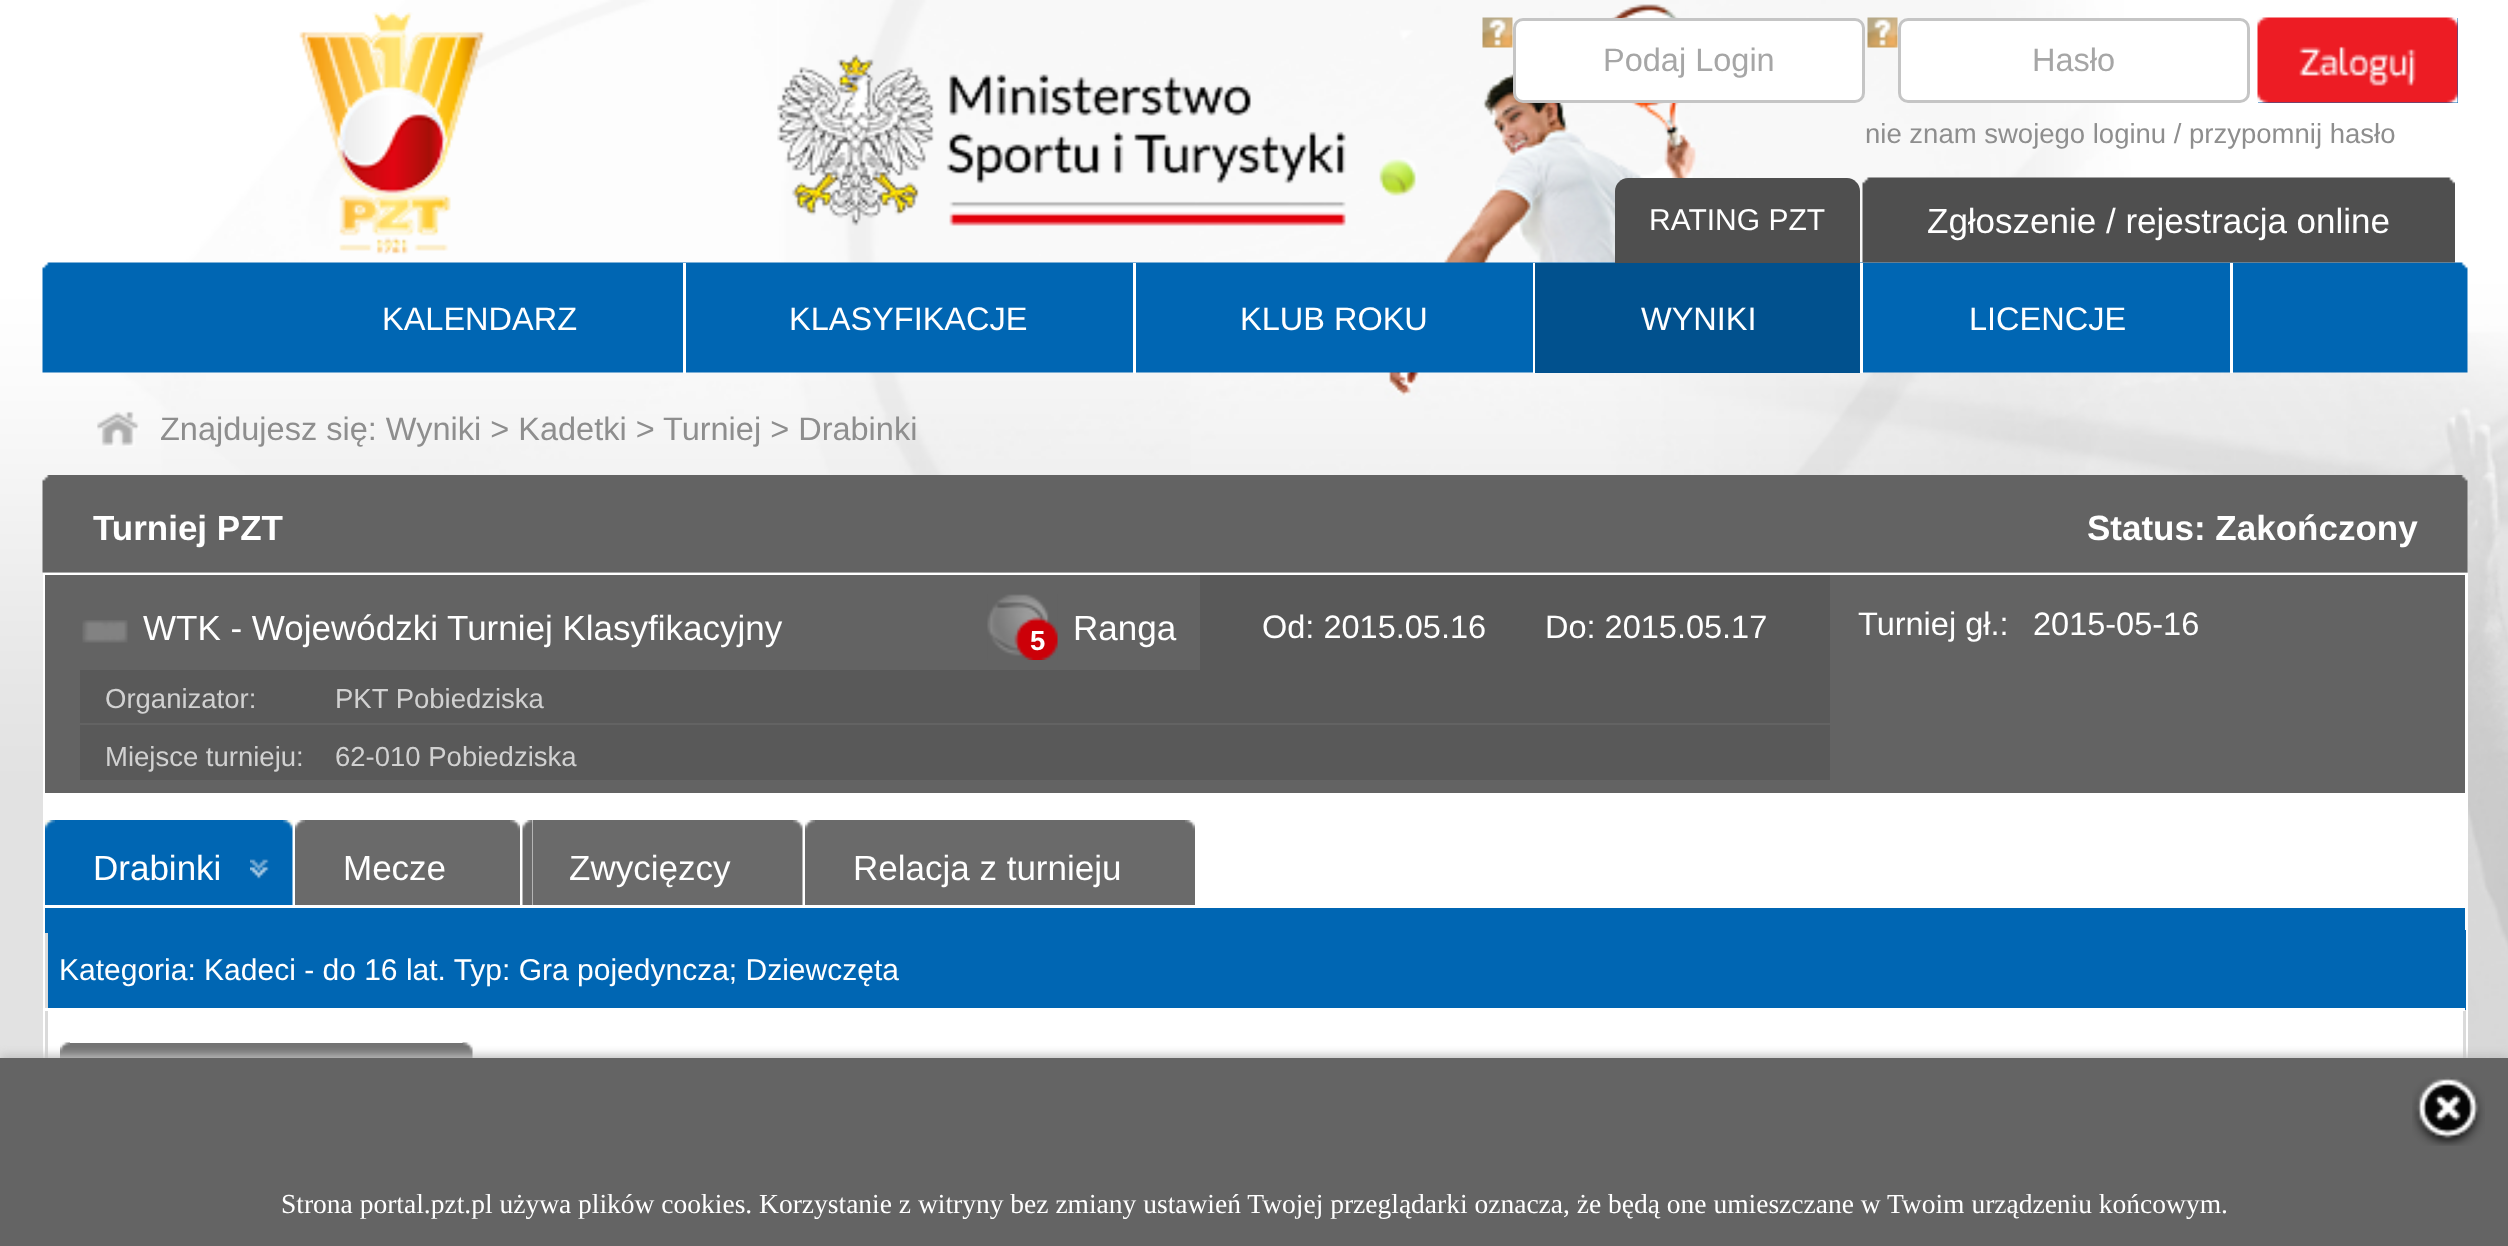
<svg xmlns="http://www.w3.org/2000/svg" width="2508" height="1246">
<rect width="100%" height="100%" fill="#fff"/>
<image x="0" y="0" width="2508" height="1058" href="media/1.png"/>
<image x="777" y="0" width="908" height="263" href="media/2.png"/>
<image x="299" y="12" width="187" height="243" href="media/3.png"/>
<image x="1482" y="17" width="31" height="31" href="media/4.png"/>
<rect x="1514.5" y="19.5" width="349" height="82" rx="8.5" fill="#fff" stroke="#c5c5c5" stroke-width="3"/>
<text x="1603" y="71" style="font-family:Liberation Sans;font-size:32.5px;fill:#a6a6a6">Podaj Login</text>
<image x="1867" y="17" width="31" height="31" href="media/5.png"/>
<rect x="1899.5" y="19.5" width="349" height="82" rx="8.5" fill="#fff" stroke="#c5c5c5" stroke-width="3"/>
<text x="2032" y="71" style="font-family:Liberation Sans;font-size:32.5px;fill:#a6a6a6">Hasło</text>
<rect x="2258" y="18" width="200" height="85" fill="#0067b4"/>
<image x="2257" y="17" width="201" height="86" href="media/6.png"/>
<text x="1865" y="143" style="font-family:Liberation Sans;font-size:27.5px;fill:#8e8e8e">nie znam swojego loginu / przypomnij hasło</text>
<image x="42" y="262" width="2426" height="111" href="media/8.png"/>
<path d="M1628 178h219c7 0 13 6 13 13v72h-245v-72c0-7 6-13 13-13z" fill="#4f4f4f"/>
<text x="1649" y="230" style="font-family:Liberation Sans;font-size:30px;fill:#fff">RATING PZT</text>
<image x="1862" y="177" width="593" height="86" href="media/7.png"/>
<text x="1927" y="233" style="font-family:Liberation Sans;font-size:35px;fill:#fff">Zgłoszenie / rejestracja online</text>
<text x="382" y="330" style="font-family:Liberation Sans;font-size:32.5px;fill:#fff">KALENDARZ</text>
<rect x="683" y="263" width="3" height="110" fill="#fff"/>
<text x="789" y="330" style="font-family:Liberation Sans;font-size:32.5px;fill:#fff">KLASYFIKACJE</text>
<rect x="1133" y="263" width="3" height="110" fill="#fff"/>
<text x="1240" y="330" style="font-family:Liberation Sans;font-size:32.5px;fill:#fff">KLUB ROKU</text>
<rect x="1533" y="263" width="2" height="110" fill="#fff"/>
<rect x="1535" y="263" width="325" height="110" fill="#01518e"/>
<text x="1641" y="330" style="font-family:Liberation Sans;font-size:32.5px;fill:#fff">WYNIKI</text>
<rect x="1860" y="263" width="3" height="110" fill="#fff"/>
<text x="1969" y="330" style="font-family:Liberation Sans;font-size:32.5px;fill:#fff">LICENCJE</text>
<rect x="2230" y="263" width="3" height="110" fill="#fff"/>
<image x="97" y="411" width="43" height="36" href="media/9.png"/>
<text x="160" y="440" style="font-family:Liberation Sans;font-size:32.5px;fill:#8e8e8e">Znajdujesz się: Wyniki &gt; Kadetki &gt;</text>
<text x="663" y="440" style="font-family:Liberation Sans;font-size:32.5px;fill:#8e8e8e">Turniej &gt; Drabinki</text>
<image x="42" y="475" width="2426" height="98" href="media/10.png"/>
<text x="93" y="540" style="font-family:Liberation Sans;font-size:35px;font-weight:bold;fill:#fff">Turniej PZT</text>
<text x="2087" y="540" style="font-family:Liberation Sans;font-size:35px;font-weight:bold;fill:#fff">Status: Zakończony</text>
<rect x="43" y="573" width="2425" height="485" fill="#fff"/>
<rect x="45" y="575" width="2420" height="218" fill="#636363"/>
<image x="82" y="620" width="46" height="23" href="media/11.png"/>
<text x="143" y="640" style="font-family:Liberation Sans;font-size:35px;fill:#fff">WTK - Wojewódzki Turniej Klasyfikacyjny</text>
<image x="987" y="594" width="71" height="66" href="media/12.png"/>
<text x="1030" y="650" style="font-family:Liberation Sans;font-size:27.5px;font-weight:bold;fill:#fff">5</text>
<text x="1073" y="640" style="font-family:Liberation Sans;font-size:35px;fill:#fff">Ranga</text>
<rect x="1200" y="575" width="630" height="95" fill="#595959"/>
<text x="1262" y="638" style="font-family:Liberation Sans;font-size:32.5px;fill:#fff">Od: 2015.05.16</text>
<text x="1545" y="638" style="font-family:Liberation Sans;font-size:32.5px;fill:#fff">Do: 2015.05.17</text>
<rect x="80" y="670" width="1750" height="53" fill="#595959"/>
<text x="105" y="708" style="font-family:Liberation Sans;font-size:27.5px;fill:#d1d1d1">Organizator:</text>
<text x="335" y="708" style="font-family:Liberation Sans;font-size:27.5px;fill:#d1d1d1">PKT Pobiedziska</text>
<rect x="80" y="725" width="1750" height="55" fill="#595959"/>
<text x="105" y="766" style="font-family:Liberation Sans;font-size:27.5px;fill:#d1d1d1">Miejsce turnieju:</text>
<text x="335" y="766" style="font-family:Liberation Sans;font-size:27.5px;fill:#d1d1d1">62-010 Pobiedziska</text>
<text x="1858" y="635" style="font-family:Liberation Sans;font-size:32.5px;fill:#fff">Turniej gł.:</text>
<text x="2033" y="635" style="font-family:Liberation Sans;font-size:32.5px;fill:#fff">2015-05-16</text>
<image x="45" y="820" width="10" height="85" href="media/13.png"/>
<image x="283" y="820" width="10" height="85" href="media/14.png"/>
<rect x="55" y="820" width="228" height="85" fill="#0066b3"/>
<image x="250" y="859" width="19" height="20" href="media/15.png"/>
<text x="93" y="880" style="font-family:Liberation Sans;font-size:35px;fill:#fff">Drabinki</text>
<image x="295" y="820" width="10" height="85" href="media/16.png"/>
<image x="510" y="820" width="10" height="85" href="media/17.png"/>
<rect x="305" y="820" width="205" height="85" fill="#6a6a6a"/>
<text x="343" y="880" style="font-family:Liberation Sans;font-size:35px;fill:#fff">Mecze</text>
<image x="522" y="820" width="11" height="85" href="media/18.png"/>
<image x="793" y="820" width="10" height="85" href="media/19.png"/>
<rect x="533" y="820" width="260" height="85" fill="#6a6a6a"/>
<text x="569" y="880" style="font-family:Liberation Sans;font-size:35px;fill:#fff">Zwycięzcy</text>
<image x="805" y="820" width="10" height="85" href="media/20.png"/>
<image x="1185" y="820" width="10" height="85" href="media/17.png"/>
<rect x="815" y="820" width="370" height="85" fill="#6a6a6a"/>
<text x="853" y="880" style="font-family:Liberation Sans;font-size:35px;fill:#fff">Relacja z turnieju</text>
<rect x="45" y="908" width="2420" height="25" fill="#0066b3"/>
<rect x="45" y="933" width="3" height="125" fill="#dadada"/>
<rect x="48" y="933" width="2415" height="75" fill="#0066b3"/>
<rect x="2463" y="1008" width="3" height="50" fill="#dadada"/>
<rect x="2463" y="930" width="3" height="80" fill="#0066b3"/>
<rect x="45" y="1008" width="2420" height="3" fill="#fff"/>
<text x="59" y="980" style="font-family:Liberation Sans;font-size:30px;fill:#fff">Kategoria: Kadeci - do 16 lat. Typ: Gra pojedyncza; Dziewczęta</text>
<image x="60" y="1042" width="10" height="16" href="media/21.png"/>
<image x="462" y="1042" width="11" height="16" href="media/22.png"/>
<rect x="70" y="1043" width="393" height="15" fill="#737373"/>
<rect y="1055" width="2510" height="190" fill="#c1c1c1" filter="blur(5px)"/>
<rect y="1058" width="2508" height="188" fill="#646464"/>
<image x="2412" y="1077" width="73" height="69" href="media/23.png"/>
<text x="281" y="1213" style="font-family:Liberation Serif;font-size:27.5px;fill:#fff">Strona portal.pzt.pl używa plików cookies. Korzystanie z witryny bez zmiany ustawień Twojej przeglądarki oznacza, że będą one umieszczane w Twoim urządzeniu końcowym.</text>
</svg>
